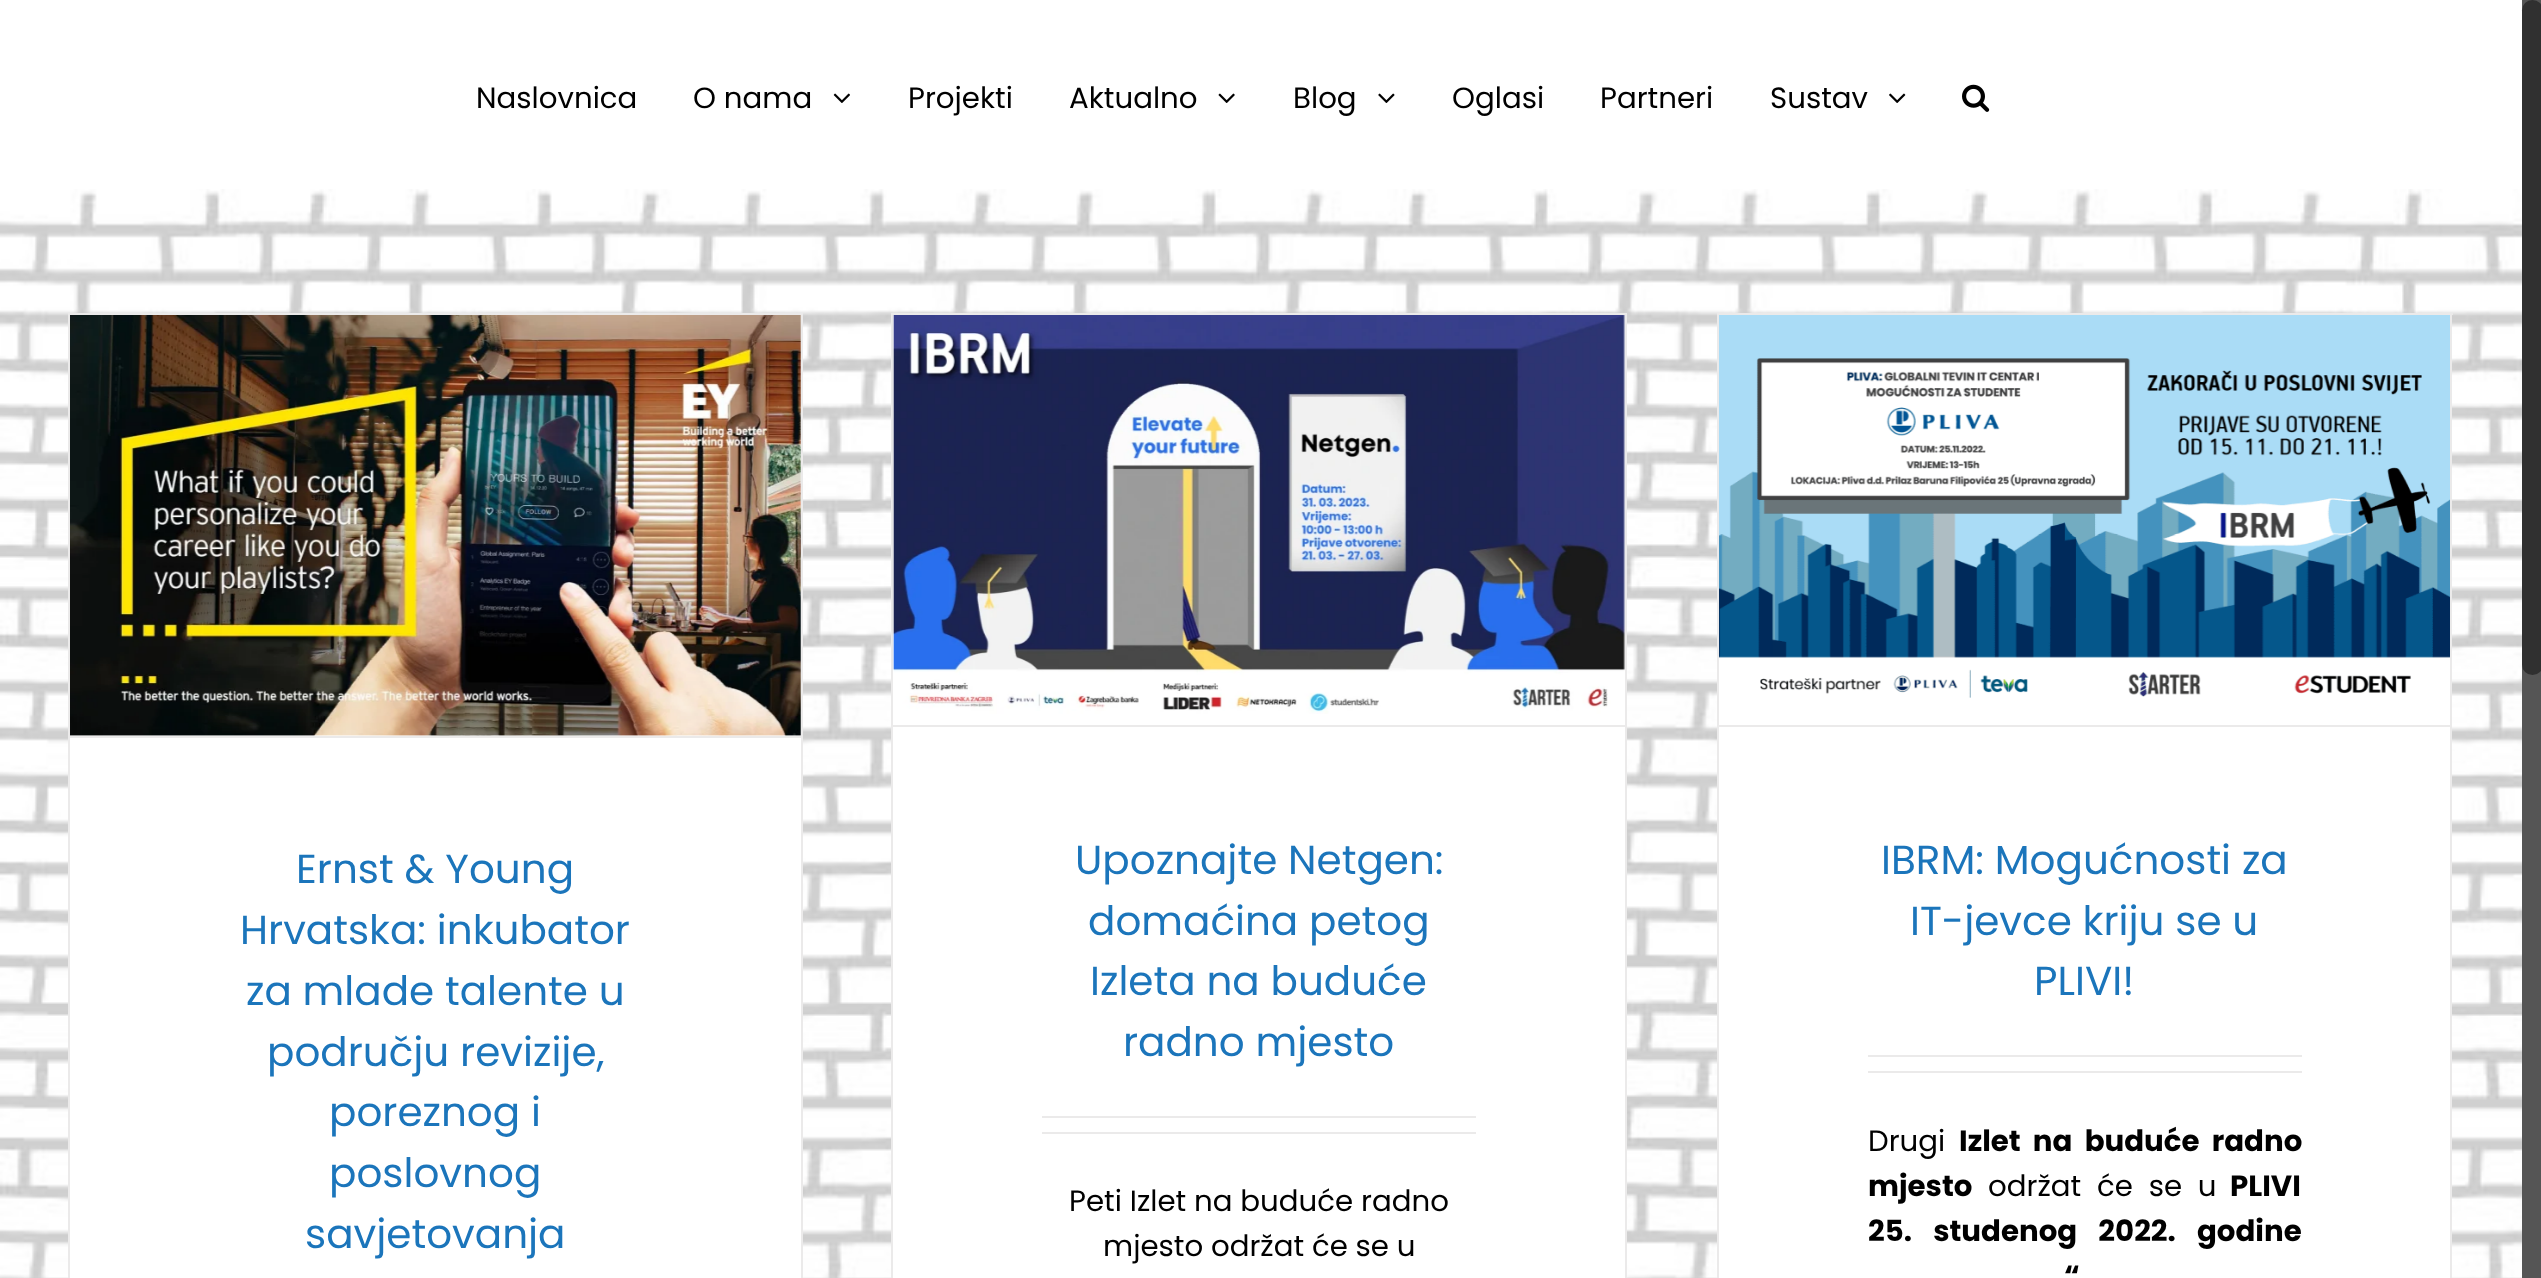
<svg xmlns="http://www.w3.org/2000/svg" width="2541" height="1278">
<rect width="100%" height="100%" fill="#fff"/>
<text x="476" y="108" style="font-family:Poppins;font-size:29.25px;fill:#000">Naslovnica</text>
<text x="693" y="108" style="font-family:Poppins;font-size:29.25px;fill:#000">O nama</text>
<image x="833" y="93" width="17" height="10" href="media/1.png"/>
<text x="908" y="108" style="font-family:Poppins;font-size:29.25px;fill:#000">Projekti</text>
<text x="1069" y="108" style="font-family:Poppins;font-size:29.25px;fill:#000">Aktualno</text>
<image x="1218" y="93" width="17" height="10" href="media/2.png"/>
<text x="1293" y="108" style="font-family:Poppins;font-size:29.25px;fill:#000">Blog</text>
<image x="1378" y="93" width="17" height="10" href="media/3.png"/>
<text x="1452" y="108" style="font-family:Poppins;font-size:29.25px;fill:#000">Oglasi</text>
<text x="1600" y="108" style="font-family:Poppins;font-size:29.25px;fill:#000">Partneri</text>
<text x="1770" y="108" style="font-family:Poppins;font-size:29.25px;fill:#000">Sustav</text>
<image x="1889" y="93" width="17" height="10" href="media/4.png"/>
<image x="1962" y="84" width="28" height="28" href="media/5.png"/>
<image x="0" y="189" width="2522" height="1089" href="media/6.png"/>
<rect x="70" y="315" width="731" height="963" fill="#fff"/>
<rect x="68" y="313" width="735" height="2" fill="#ebeaea"/>
<rect x="801" y="313" width="2" height="965" fill="#ebeaea"/>
<rect x="68" y="313" width="2" height="965" fill="#ebeaea"/>
<rect x="70" y="736" width="731" height="2" fill="#ebeaea"/>
<image x="70" y="315" width="731" height="421" href="media/7.png"/>
<text x="296" y="883" style="font-family:Poppins;font-size:40.5px;fill:#1b75bb">Ernst &amp; Young</text>
<text x="240" y="944" style="font-family:Poppins;font-size:40.5px;fill:#1b75bb">Hrvatska: inkubator</text>
<text x="246" y="1005" style="font-family:Poppins;font-size:40.5px;fill:#1b75bb">za mlade talente u</text>
<text x="267" y="1066" style="font-family:Poppins;font-size:40.5px;fill:#1b75bb">području revizije,</text>
<text x="329" y="1126" style="font-family:Poppins;font-size:40.5px;fill:#1b75bb">poreznog i</text>
<text x="329" y="1187" style="font-family:Poppins;font-size:40.5px;fill:#1b75bb">poslovnog</text>
<text x="305" y="1248" style="font-family:Poppins;font-size:40.5px;fill:#1b75bb">savjetovanja</text>
<rect x="893" y="315" width="732" height="963" fill="#fff"/>
<rect x="891" y="313" width="736" height="2" fill="#ebeaea"/>
<rect x="1625" y="313" width="2" height="965" fill="#ebeaea"/>
<rect x="891" y="313" width="2" height="965" fill="#ebeaea"/>
<rect x="893" y="725" width="732" height="2" fill="#ebeaea"/>
<image x="892" y="315" width="733" height="399" href="media/8.png"/>
<text x="1075" y="874" style="font-family:Poppins;font-size:40.5px;fill:#1b75bb">Upoznajte Netgen:</text>
<text x="1088" y="935" style="font-family:Poppins;font-size:40.5px;fill:#1b75bb">domaćina petog</text>
<text x="1090" y="995" style="font-family:Poppins;font-size:40.5px;fill:#1b75bb">Izleta na buduće</text>
<text x="1123" y="1056" style="font-family:Poppins;font-size:40.5px;fill:#1b75bb">radno mjesto</text>
<rect x="1042" y="1116" width="434" height="2" fill="#ebeaea"/>
<rect x="1042" y="1132" width="434" height="2" fill="#ebeaea"/>
<text x="1069" y="1211" style="font-family:Poppins;font-size:29.25px;fill:#000">Peti Izlet na buduće radno</text>
<text x="1103" y="1256" style="font-family:Poppins;font-size:29.25px;fill:#000">mjesto održat će se u</text>
<rect x="1719" y="698" width="731" height="580" fill="#fff"/>
<rect x="1717" y="313" width="736" height="2" fill="#ebeaea"/>
<rect x="2450" y="313" width="2" height="965" fill="#ebeaea"/>
<rect x="1717" y="313" width="2" height="965" fill="#ebeaea"/>
<rect x="1719" y="725" width="731" height="2" fill="#ebeaea"/>
<image x="1719" y="315" width="731" height="383" href="media/9.png"/>
<text x="1881" y="874" style="font-family:Poppins;font-size:40.5px;fill:#1b75bb">IBRM: Mogućnosti za</text>
<text x="1910" y="935" style="font-family:Poppins;font-size:40.5px;fill:#1b75bb">IT-jevce kriju se u</text>
<text x="2034" y="995" style="font-family:Poppins;font-size:40.5px;fill:#1b75bb">PLIVI!</text>
<rect x="1868" y="1055" width="434" height="2" fill="#ebeaea"/>
<rect x="1868" y="1071" width="434" height="2" fill="#ebeaea"/>
<text x="1868" y="1151" style="font-family:Poppins;font-size:29.25px;fill:#000">Drugi</text>
<text x="1959" y="1151" word-spacing="6" style="font-family:Poppins;font-size:29.25px;font-weight:bold;fill:#000">Izlet na buduće radno</text>
<text x="1868" y="1196" style="font-family:Poppins;font-size:29.25px;font-weight:bold;fill:#000">mjesto</text>
<text x="1988" y="1196" word-spacing="8" style="font-family:Poppins;font-size:29.25px;fill:#000">održat će se u</text>
<text x="2230" y="1196" style="font-family:Poppins;font-size:29.25px;font-weight:bold;fill:#000">PLIVI</text>
<text x="1868" y="1241" word-spacing="15" style="font-family:Poppins;font-size:29.25px;font-weight:bold;fill:#000">25. studenog 2022. godine</text>
<text x="2064" y="1286" style="font-family:Poppins;font-size:29.25px;font-weight:bold;fill:#000">“</text>
<rect x="2522" width="19" height="1278" fill="#555"/>
<rect x="2522" width="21" height="675" rx="10.5" fill="#303030"/>
</svg>
